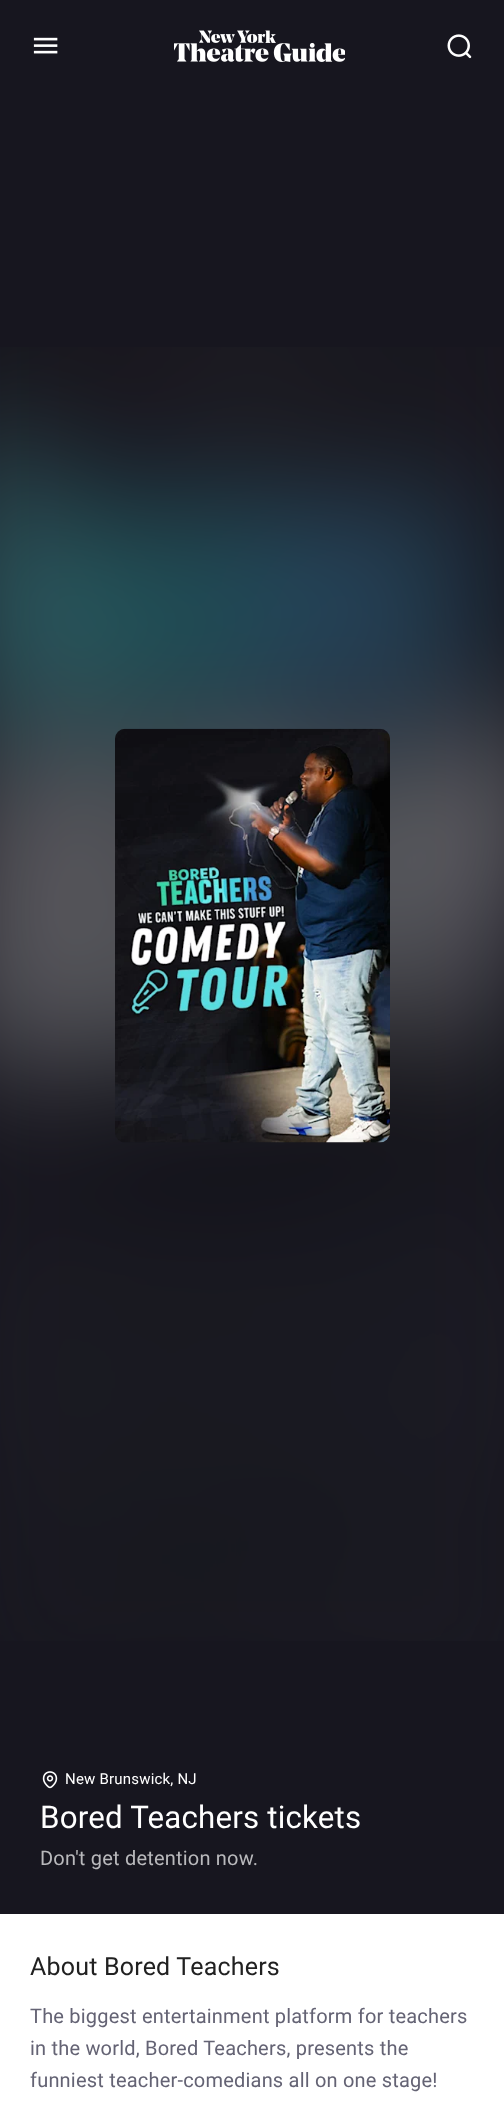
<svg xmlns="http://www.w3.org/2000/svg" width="504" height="2110">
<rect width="100%" height="100%" fill="#fff"/>
<rect width="504" height="1914" fill="#17161f"/>
<image x="33" y="37" width="25" height="17" href="media/1.png"/>
<image x="174" y="30" width="171" height="32" href="media/2.png"/>
<image x="447" y="34" width="25" height="25" href="media/3.png"/>
<image x="0" y="347" width="504" height="1294" href="media/4.png"/>
<image x="115" y="728" width="275" height="415" href="media/5.png"/>
<image x="42" y="1771" width="16" height="18" href="media/6.png"/>
<text x="65" y="1784" style="font-family:Roboto;font-size:15px;letter-spacing:0.2px;fill:#fff">New Brunswick, NJ</text>
<text x="40" y="1828" style="font-family:Roboto;font-size:31.25px;letter-spacing:0.2px;fill:#fff">Bored Teachers tickets</text>
<text x="40" y="1865" style="font-family:Roboto;font-size:20px;letter-spacing:0.2px;fill:#b9b9bc">Don't get detention now.</text>
<text x="30" y="1975" style="font-family:Roboto;font-size:25px;letter-spacing:0.2px;fill:#212121">About Bored Teachers</text>
<text x="30" y="2023" style="font-family:Roboto;font-size:20px;letter-spacing:0.2px;fill:#646374">The biggest entertainment platform for teachers</text>
<text x="30" y="2055" style="font-family:Roboto;font-size:20px;letter-spacing:0.2px;fill:#646374">in the world, Bored Teachers, presents the</text>
<text x="30" y="2087" style="font-family:Roboto;font-size:20px;letter-spacing:0.2px;fill:#646374">funniest teacher-comedians all on one stage!</text>
</svg>
